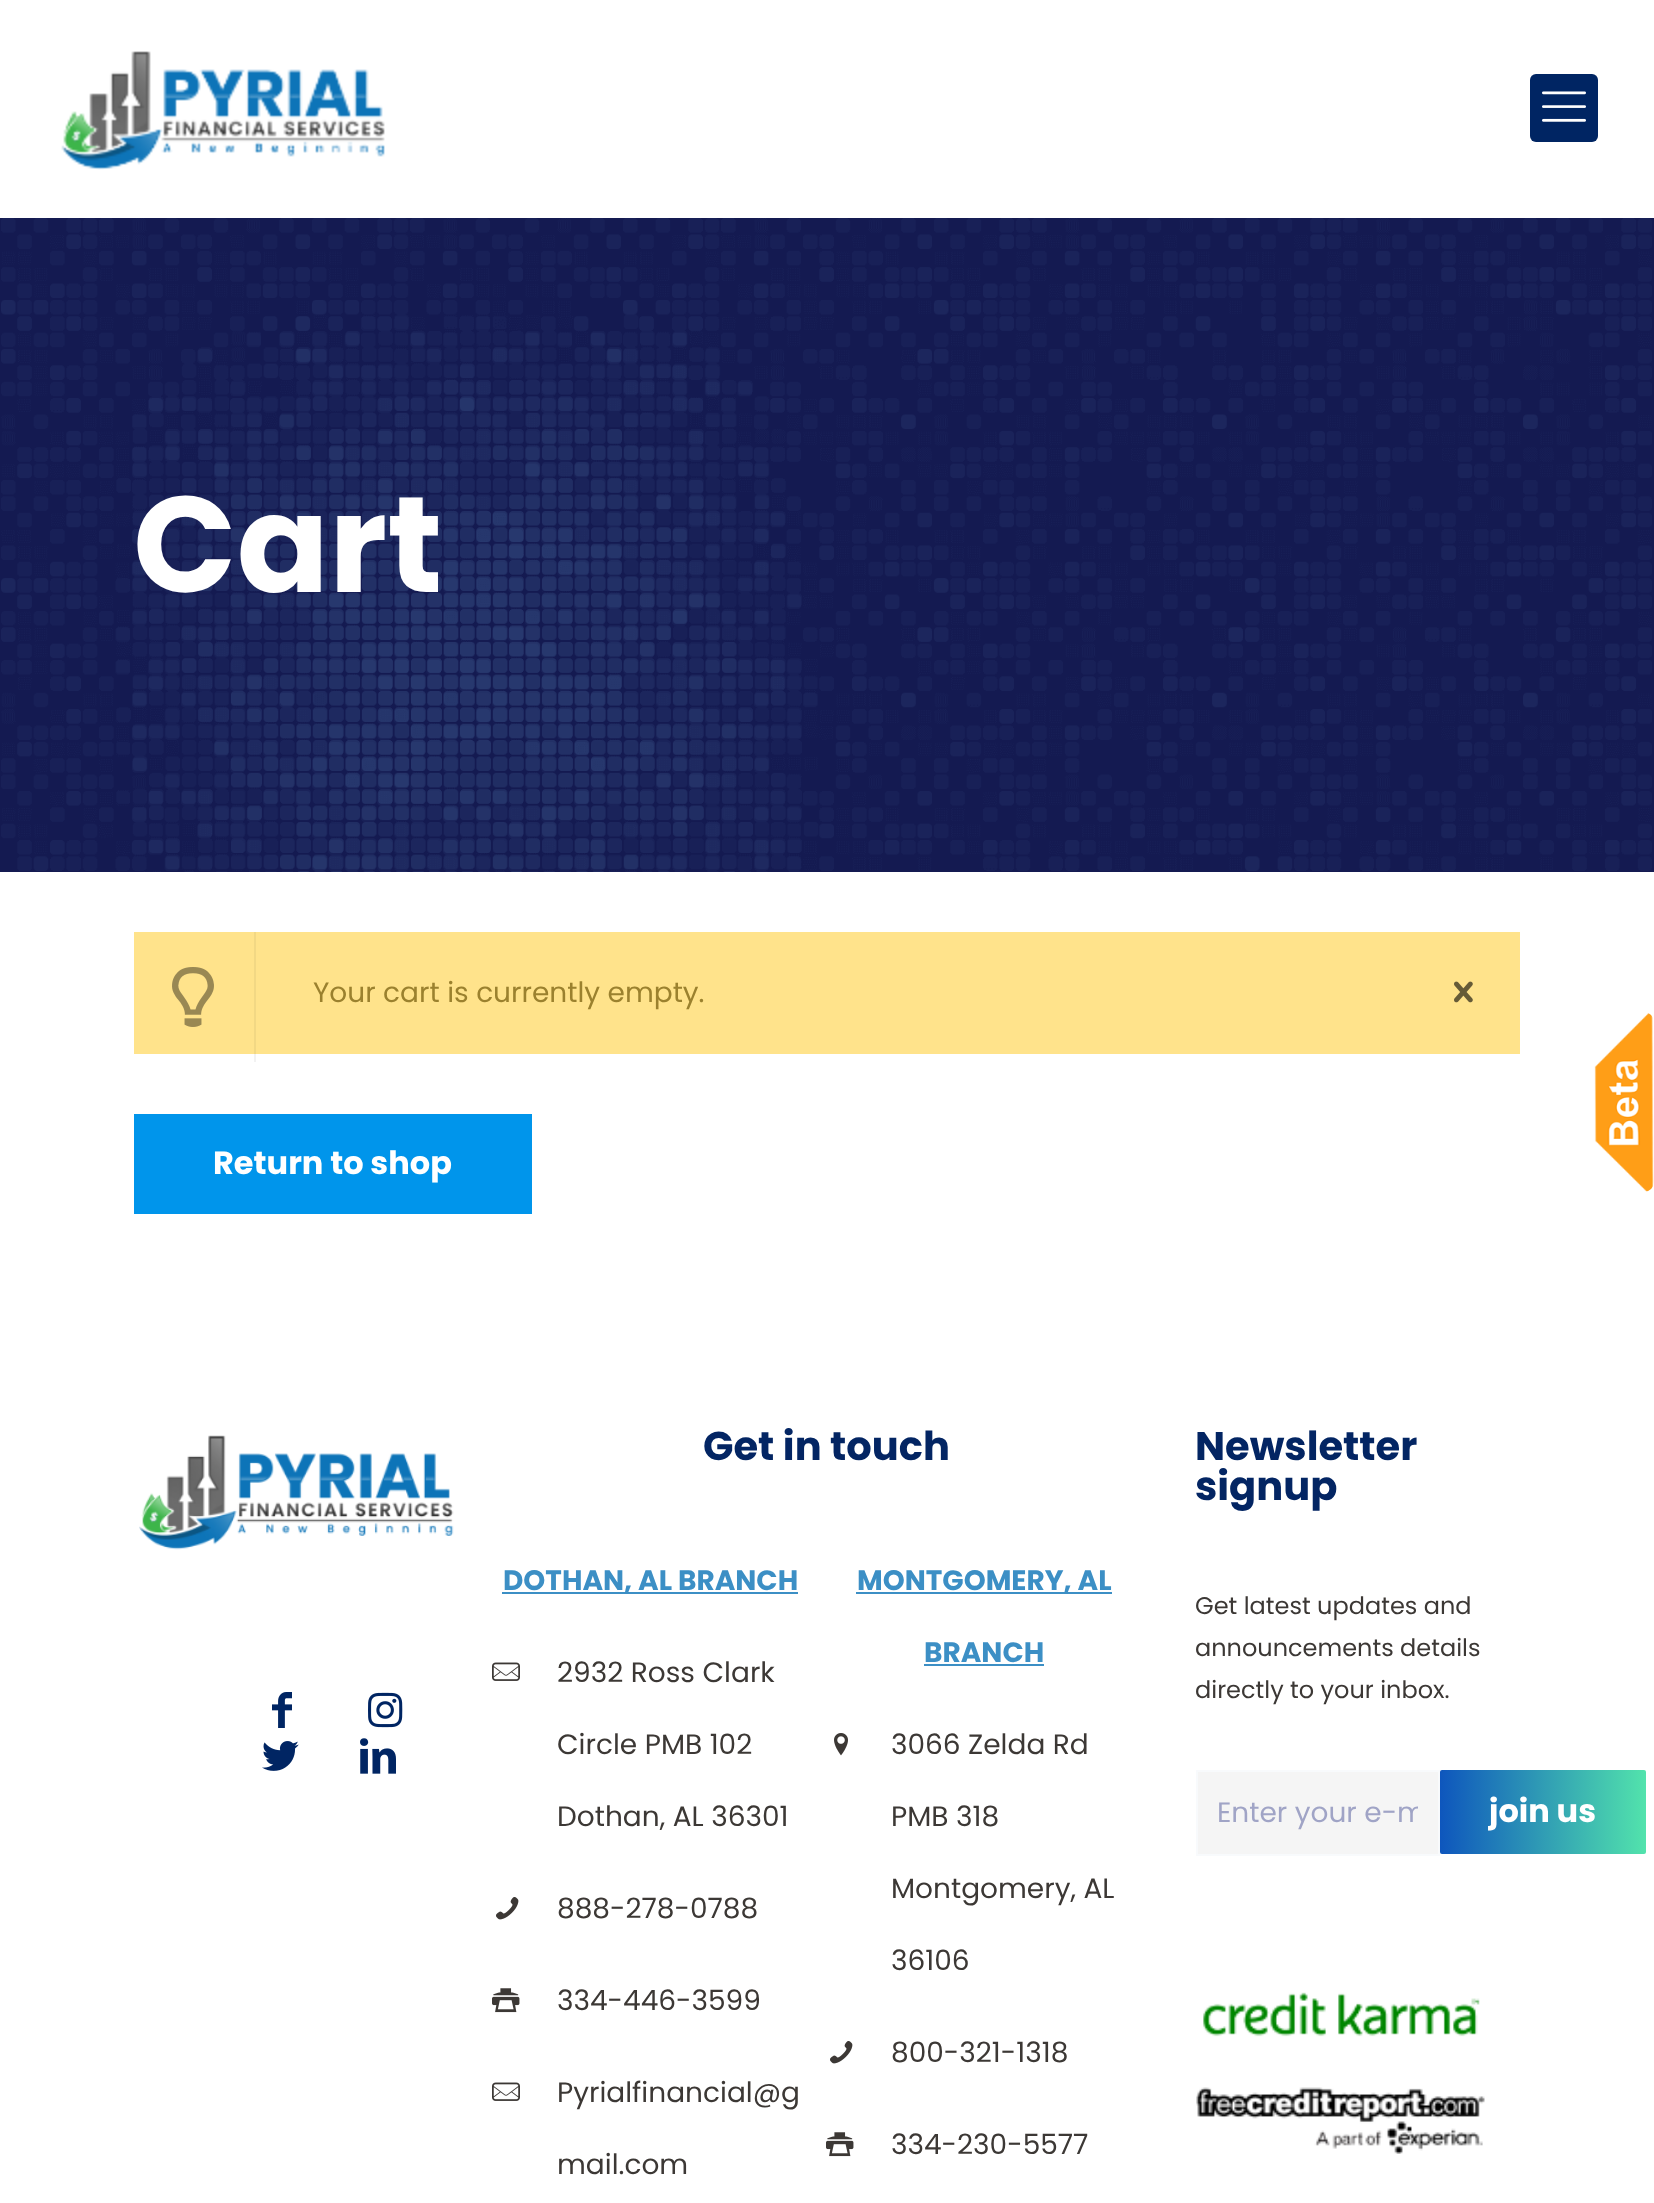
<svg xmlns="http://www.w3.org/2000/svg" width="1654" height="2203">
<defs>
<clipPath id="clip1"><rect x="1218" y="1792" width="200" height="42"/></clipPath>
<linearGradient id="g1" gradientUnits="userSpaceOnUse" x1="1646" y1="1812" x2="1440" y2="1812"><stop offset="0" stop-color="#52e3ac"/><stop offset="1" stop-color="#0e56bd"/></linearGradient>
</defs>
<rect width="100%" height="100%" fill="#fff"/>
<rect x="254" y="1054" width="2" height="8" fill="#f2f2f2"/>
<rect y="218" width="1654" height="654" fill="#141a51"/>
<image x="61" y="51" width="324" height="119" href="media/1.png"/>
<rect x="1530" y="74" width="68" height="68" rx="6" fill="#002563"/>
<image x="1542" y="91" width="44" height="31" href="media/2.png"/>
<image x="1" y="218" width="1651" height="654" href="media/3.png"/>
<text x="133" y="592" style="font-family:Poppins;font-size:136px;font-weight:bold;fill:#fff">Cart</text>
<rect x="134" y="932" width="1386" height="122" fill="#ffe38b"/>
<rect x="254" y="932" width="2" height="122" fill="#f2d884"/>
<image x="172" y="967" width="42" height="60" href="media/4.png"/>
<text x="313" y="1002" style="font-family:Poppins;font-size:28px;fill:#9b812e">Your cart is currently empty.</text>
<image x="1454" y="981" width="19" height="22" href="media/5.png"/>
<rect x="134" y="1114" width="398" height="100" fill="#0095eb"/>
<text x="213" y="1174" style="font-family:Poppins;font-size:32px;font-weight:bold;fill:#fff">Return to shop</text>
<image x="139" y="1435" width="315" height="115" href="media/6.png"/>
<image x="272" y="1692" width="20" height="36" href="media/7.png"/>
<image x="368" y="1692" width="35" height="36" href="media/8.png"/>
<image x="262" y="1741" width="37" height="30" href="media/9.png"/>
<image x="360" y="1738" width="36" height="36" href="media/10.png"/>
<text x="703" y="1460" style="font-family:Poppins;font-size:40px;font-weight:bold;fill:#032563">Get in touch</text>
<rect x="502" y="1592" width="296" height="2" fill="#3c8fc5"/>
<text x="503" y="1590" style="font-family:Poppins;font-size:28px;font-weight:bold;fill:#3c8fc5">DOTHAN, AL BRANCH</text>
<image x="492" y="1662" width="28" height="19" href="media/11.png"/>
<text x="557" y="1682" style="font-family:Poppins;font-size:28px;fill:#3c3835">2932 Ross Clark</text>
<text x="557" y="1754" style="font-family:Poppins;font-size:28px;fill:#3c3835">Circle PMB 102</text>
<text x="557" y="1826" style="font-family:Poppins;font-size:28px;fill:#3c3835">Dothan, AL 36301</text>
<image x="496" y="1897" width="23" height="23" href="media/12.png"/>
<text x="557" y="1918" style="font-family:Poppins;font-size:28px;fill:#3c3835">888-278-0788</text>
<image x="492" y="1988" width="28" height="25" href="media/13.png"/>
<text x="557" y="2010" style="font-family:Poppins;font-size:28px;fill:#3c3835">334-446-3599</text>
<image x="492" y="2082" width="28" height="19" href="media/11.png"/>
<text x="557" y="2102" style="font-family:Poppins;font-size:28px;fill:#3c3835">Pyrialfinancial@g</text>
<text x="557" y="2174" style="font-family:Poppins;font-size:28px;fill:#3c3835">mail.com</text>
<rect x="856" y="1592" width="256" height="2" fill="#3c8fc5"/>
<text x="857" y="1590" style="font-family:Poppins;font-size:28px;font-weight:bold;fill:#3c8fc5">MONTGOMERY, AL</text>
<text x="924" y="1662" style="font-family:Poppins;font-size:28px;font-weight:bold;fill:#3c8fc5">BRANCH</text>
<rect x="924" y="1664" width="120" height="2" fill="#3c8fc5"/>
<image x="834" y="1733" width="14" height="23" href="media/14.png"/>
<text x="891" y="1754" style="font-family:Poppins;font-size:28px;fill:#3c3835">3066 Zelda Rd</text>
<text x="891" y="1826" style="font-family:Poppins;font-size:28px;fill:#3c3835">PMB 318</text>
<text x="891" y="1898" style="font-family:Poppins;font-size:28px;fill:#3c3835">Montgomery, AL</text>
<text x="891" y="1970" style="font-family:Poppins;font-size:28px;fill:#3c3835">36106</text>
<image x="830" y="2041" width="23" height="23" href="media/12.png"/>
<text x="891" y="2062" style="font-family:Poppins;font-size:28px;fill:#3c3835">800-321-1318</text>
<image x="826" y="2132" width="28" height="25" href="media/13.png"/>
<text x="891" y="2154" style="font-family:Poppins;font-size:28px;fill:#3c3835">334-230-5577</text>
<text x="1195" y="1460" style="font-family:Poppins;font-size:40px;font-weight:bold;fill:#032563">Newsletter</text>
<text x="1195" y="1500" style="font-family:Poppins;font-size:40px;font-weight:bold;fill:#032563">signup</text>
<text x="1195" y="1614" style="font-family:Poppins;font-size:24px;fill:#3c3835">Get latest updates and</text>
<text x="1195" y="1656" style="font-family:Poppins;font-size:24px;fill:#3c3835">announcements details</text>
<text x="1195" y="1698" style="font-family:Poppins;font-size:24px;fill:#3c3835">directly to your inbox.</text>
<rect x="1197" y="1771" width="242" height="84" fill="#f5f5f5" stroke="#f8fafc" stroke-width="2"/>
<g clip-path="url(#clip1)">
<text x="1217" y="1822" style="font-family:Poppins;font-size:28px;fill:#a0a4c6">Enter your e-m</text>
</g>
<rect x="1440" y="1770" width="206" height="84" rx="2" fill="url(#g1)"/>
<text x="1489" y="1822" style="font-family:Poppins;font-size:32px;font-weight:bold;fill:#fff">join us</text>
<image x="1203" y="1992" width="277" height="45" href="media/15.png"/>
<image x="1196" y="2087" width="289" height="67" href="media/16.png"/>
<image x="1594" y="1013" width="60" height="179" href="media/17.png"/>
</svg>
